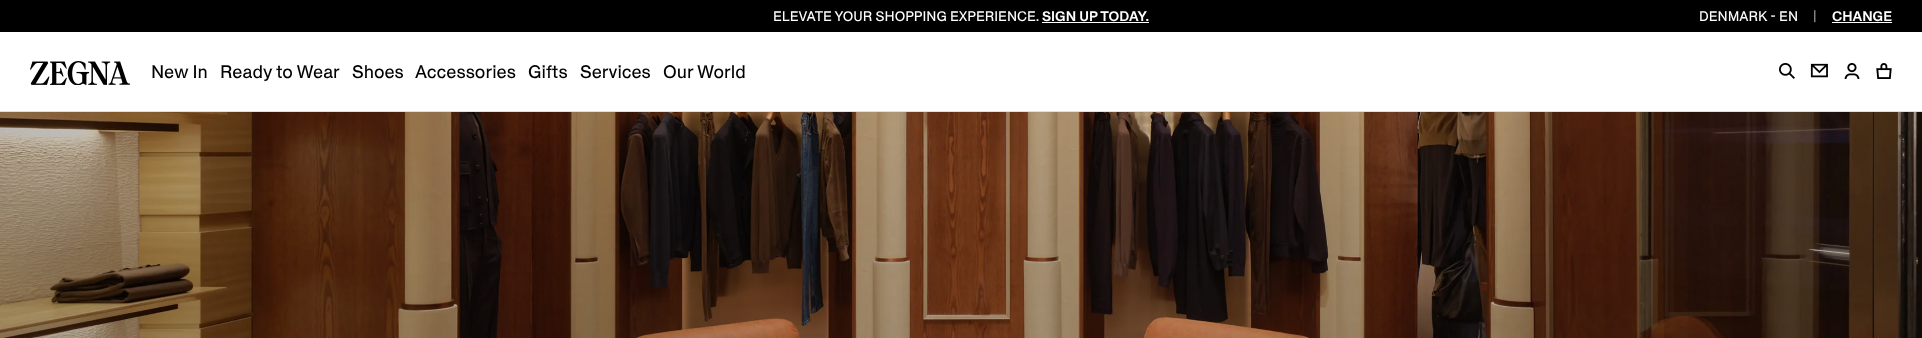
<svg xmlns="http://www.w3.org/2000/svg" width="1922" height="338">
<rect width="100%" height="100%" fill="#fff"/>
<rect width="1922" height="32" fill="#000"/>
<text x="773" y="21" style="font-family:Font;font-size:13px;fill:#fff">ELEVATE YOUR SHOPPING EXPERIENCE.</text>
<text x="1042" y="21" style="font-family:Font;font-size:13px;font-weight:bold;fill:#fff">SIGN UP TODAY.</text>
<rect x="1042" y="22" width="107" height="1" fill="#fff"/>
<text x="1699" y="21" style="font-family:Font;font-size:13px;fill:#fff">DENMARK - EN</text>
<text x="1813" y="21" style="font-family:Font;font-size:13px;fill:#a3a3a3">|</text>
<text x="1832" y="21" style="font-family:Font;font-size:13px;font-weight:bold;fill:#fff">CHANGE</text>
<rect x="1832" y="22" width="60" height="1" fill="#fff"/>
<image x="30" y="61" width="100" height="24" href="media/1.png"/>
<text x="151" y="78" style="font-family:Font;font-size:17px;fill:#000">New In</text>
<text x="220" y="78" style="font-family:Font;font-size:17px;fill:#000">Ready to Wear</text>
<text x="352" y="78" style="font-family:Font;font-size:17px;fill:#000">Shoes</text>
<text x="415" y="78" style="font-family:Font;font-size:17px;fill:#000">Accessories</text>
<text x="528" y="78" style="font-family:Font;font-size:17px;fill:#000">Gifts</text>
<text x="580" y="78" style="font-family:Font;font-size:17px;fill:#000">Services</text>
<text x="663" y="78" style="font-family:Font;font-size:17px;fill:#000">Our World</text>
<image x="1779" y="63" width="16" height="16" href="media/2.png"/>
<image x="1810" y="63" width="18" height="15" href="media/3.png"/>
<image x="1844" y="63" width="16" height="16" href="media/4.png"/>
<image x="1876" y="63" width="16" height="16" href="media/5.png"/>
<rect y="111" width="1922" height="1" fill="#e0e0e0"/>
<image x="0" y="112" width="1922" height="226" href="media/6.png"/>
</svg>
